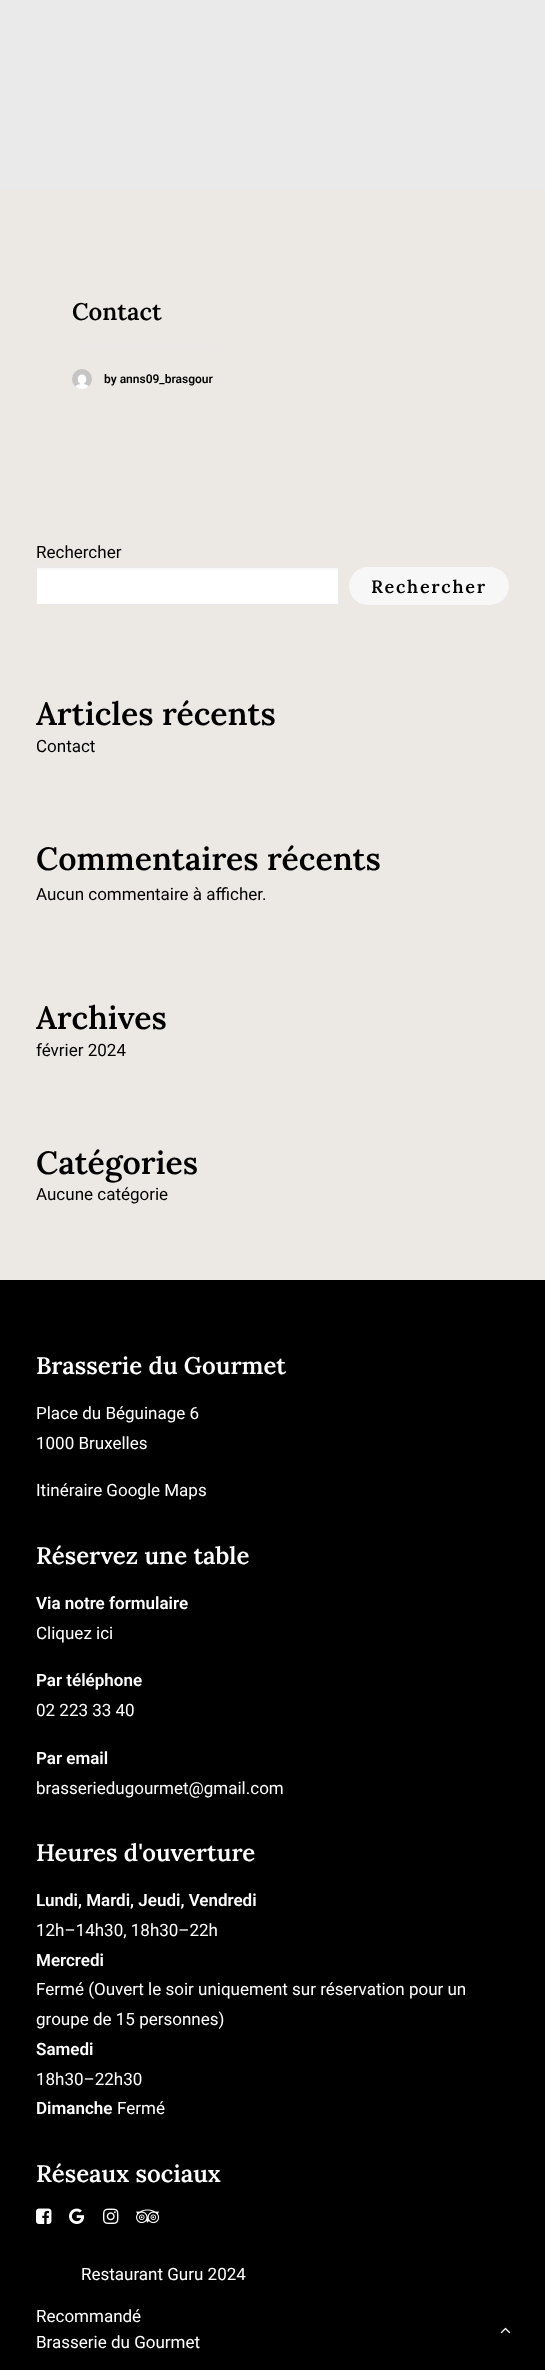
<svg xmlns="http://www.w3.org/2000/svg" width="545" height="2370">
<rect width="100%" height="100%" fill="#000"/>
<rect width="545" height="190" fill="#eaeaea"/>
<rect y="190" width="545" height="1090" fill="#ece8e4"/>
<text x="72" y="320" style="font-family:Lora;font-size:24px;font-weight:600;fill:#000">Contact</text>
<rect x="72" y="345" width="146" height="1" fill="#eaeaea"/>
<image x="72" y="369" width="20" height="20" href="media/1.png"/>
<text x="104" y="383" style="font-family:Roboto;font-size:12px;font-weight:600;fill:#000">by anns09_brasgour</text>
<text x="36" y="558" style="font-family:Roboto;font-size:17px;fill:#000">Rechercher</text>
<rect x="36" y="567" width="303" height="38" rx="2" fill="#fff"/>
<path d="M38 570h300v-1c0-1 0-1-1-1h-299c-1 0-1 0-1 1v2z" fill="#f9f9f9"/>
<rect x="36.5" y="567.5" width="302" height="37" rx="1.5" fill="none" stroke="#eaeaea"/>
<rect x="349" y="567" width="160" height="38" rx="19" fill="#f7f7f7"/>
<text x="371" y="593" style="font-family:Lora;font-size:18px;font-weight:600;letter-spacing:1.75px;fill:#000">Rechercher</text>
<text x="36" y="725" style="font-family:Lora;font-size:32px;font-weight:600;fill:#000">Articles récents</text>
<text x="36" y="752" style="font-family:Roboto;font-size:17px;fill:#000">Contact</text>
<text x="36" y="870" style="font-family:Lora;font-size:32px;font-weight:600;fill:#000">Commentaires récents</text>
<text x="36" y="900" style="font-family:Roboto;font-size:17px;fill:#000">Aucun commentaire à afficher.</text>
<text x="36" y="1029" style="font-family:Lora;font-size:32px;font-weight:600;fill:#000">Archives</text>
<text x="36" y="1056" style="font-family:Roboto;font-size:17px;fill:#000">février 2024</text>
<text x="36" y="1174" style="font-family:Lora;font-size:32px;font-weight:600;fill:#000">Catégories</text>
<text x="36" y="1200" style="font-family:Roboto;font-size:17px;fill:#000">Aucune catégorie</text>
<text x="36" y="1374" style="font-family:Lora;font-size:24px;font-weight:600;fill:#fff">Brasserie du Gourmet</text>
<text x="36" y="1419" style="font-family:Roboto;font-size:17px;fill:#fff">Place du Béguinage 6</text>
<text x="36" y="1449" style="font-family:Roboto;font-size:17px;fill:#fff">1000 Bruxelles</text>
<text x="36" y="1496" style="font-family:Roboto;font-size:17px;fill:#fff">Itinéraire Google Maps</text>
<text x="36" y="1564" style="font-family:Lora;font-size:24px;font-weight:600;fill:#fff">Réservez une table</text>
<text x="36" y="1609" style="font-family:Roboto;font-size:17px;font-weight:600;fill:#fff">Via notre formulaire</text>
<text x="36" y="1639" style="font-family:Roboto;font-size:17px;fill:#fff">Cliquez ici</text>
<text x="36" y="1686" style="font-family:Roboto;font-size:17px;font-weight:600;fill:#fff">Par téléphone</text>
<text x="36" y="1716" style="font-family:Roboto;font-size:17px;fill:#fff">02 223 33 40</text>
<text x="36" y="1764" style="font-family:Roboto;font-size:17px;font-weight:600;fill:#fff">Par email</text>
<text x="36" y="1794" style="font-family:Roboto;font-size:17px;fill:#fff">brasseriedugourmet@gmail.com</text>
<text x="36" y="1861" style="font-family:Lora;font-size:24px;font-weight:600;fill:#fff">Heures d'ouverture</text>
<text x="36" y="1906" style="font-family:Roboto;font-size:17px;font-weight:600;fill:#fff">Lundi, Mardi, Jeudi, Vendredi</text>
<text x="36" y="1936" style="font-family:Roboto;font-size:17px;fill:#fff">12h–14h30, 18h30–22h</text>
<text x="36" y="1966" style="font-family:Roboto;font-size:17px;font-weight:600;fill:#fff">Mercredi</text>
<text x="36" y="1995" style="font-family:Roboto;font-size:17px;fill:#fff">Fermé (Ouvert le soir uniquement sur réservation pour un</text>
<text x="36" y="2025" style="font-family:Roboto;font-size:17px;fill:#fff">groupe de 15 personnes)</text>
<text x="36" y="2055" style="font-family:Roboto;font-size:17px;font-weight:600;fill:#fff">Samedi</text>
<text x="36" y="2085" style="font-family:Roboto;font-size:17px;fill:#fff">18h30–22h30</text>
<text x="36" y="2114" style="font-family:Roboto;font-size:17px;font-weight:600;fill:#fff">Dimanche</text>
<text x="117" y="2114" style="font-family:Roboto;font-size:17px;fill:#fff">Fermé</text>
<text x="36" y="2182" style="font-family:Lora;font-size:24px;font-weight:600;fill:#fff">Réseaux sociaux</text>
<image x="36" y="2208" width="16" height="16" href="media/2.png"/>
<image x="69" y="2208" width="16" height="16" href="media/3.png"/>
<image x="103" y="2208" width="16" height="16" href="media/4.png"/>
<image x="136" y="2209" width="24" height="15" href="media/5.png"/>
<text x="81" y="2280" style="font-family:Roboto;font-size:17px;fill:#fff">Restaurant Guru 2024</text>
<text x="36" y="2322" style="font-family:Roboto;font-size:17px;fill:#fff">Recommandé</text>
<text x="36" y="2348" style="font-family:Roboto;font-size:17px;fill:#fff">Brasserie du Gourmet</text>
<image x="500" y="2327" width="11" height="7" href="media/6.png"/>
</svg>
